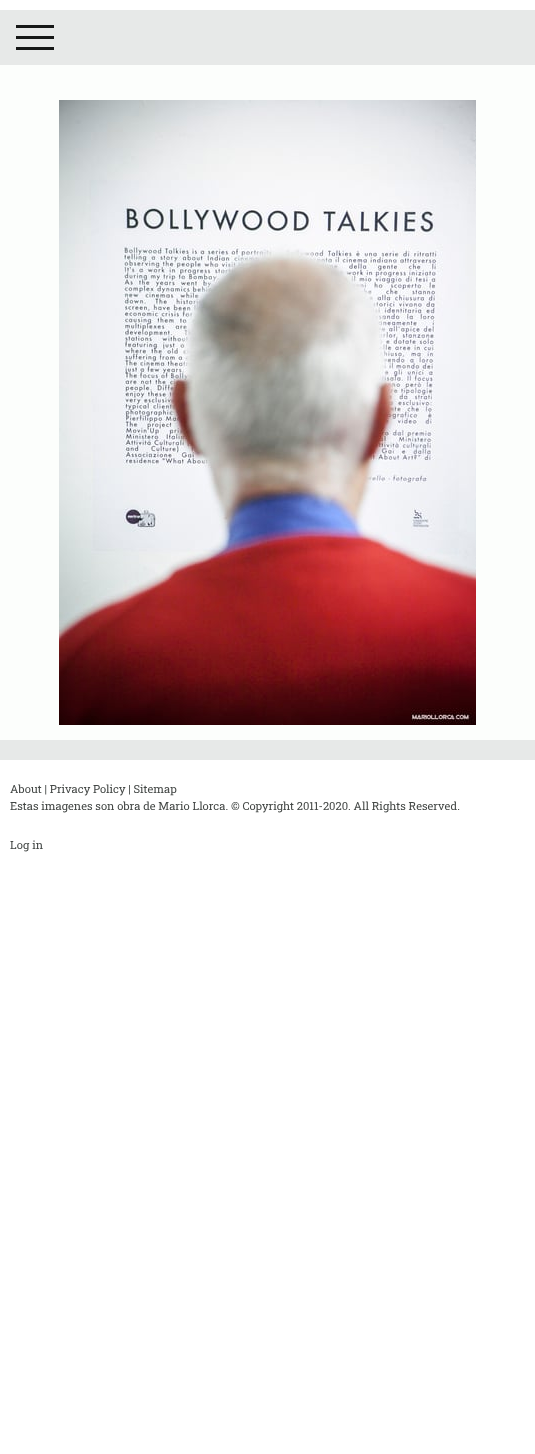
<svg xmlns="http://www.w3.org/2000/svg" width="535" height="1454">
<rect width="100%" height="100%" fill="#fff"/>
<rect y="10" width="535" height="55" fill="#e7e9e8"/>
<rect x="16" y="36" width="38" height="3" fill="#161817"/>
<rect x="16" y="25" width="38" height="3" fill="#161817"/>
<rect x="16" y="47" width="38" height="3" fill="#161817"/>
<rect y="65" width="535" height="675" fill="#fcfefc"/>
<image x="59" y="100" width="417" height="625" href="media/1.png"/>
<rect y="740" width="535" height="20" fill="#e7e9e8"/>
<text x="10" y="793" style="font-family:Roboto Slab;font-size:11.2px;fill:#434745">About | Privacy Policy | Sitemap</text>
<text x="10" y="810" style="font-family:Roboto Slab;font-size:11.2px;fill:#434745">Estas imagenes son obra de Mario Llorca. © Copyright 2011-2020. All Rights Reserved.</text>
<text x="10" y="849" style="font-family:Roboto Slab;font-size:11.2px;fill:#434745">Log in</text>
</svg>
